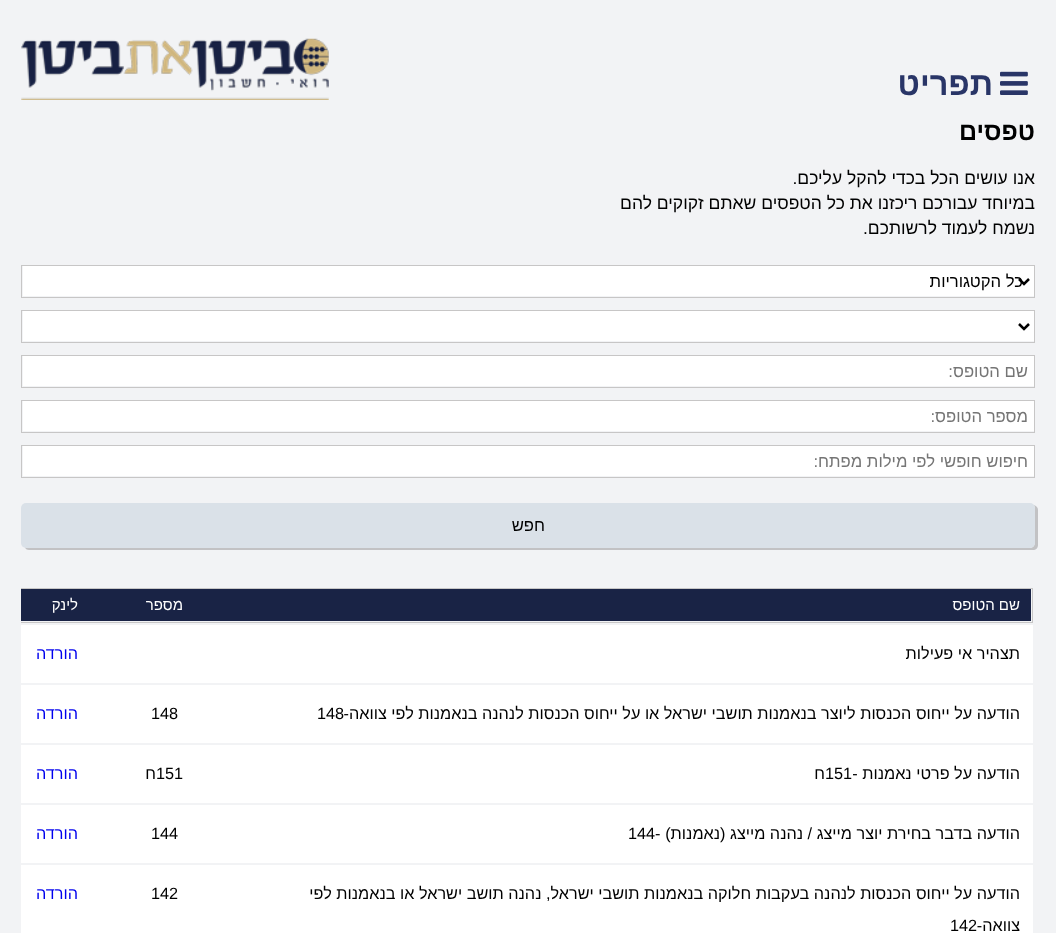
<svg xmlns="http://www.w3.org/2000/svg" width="1056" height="933">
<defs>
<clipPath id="clip1"><rect x="21" y="585" width="1014" height="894"/></clipPath>
</defs>
<rect width="100%" height="100%" fill="#f2f3f5"/>
<image x="1000" y="71" width="28" height="24" href="media/1.png"/>
<text x="993" y="95" style="font-family:Liberation Sans;font-size:32.5px;font-weight:bold;direction:rtl;fill:#293567">תפריט</text>
<image x="21" y="38" width="308" height="62" href="media/2.png"/>
<text x="1035" y="140" style="font-family:Liberation Sans;font-size:25px;font-weight:bold;direction:rtl;fill:#000">טפסים</text>
<text x="1035" y="184" style="font-family:Liberation Sans;font-size:17.5px;direction:rtl;fill:#000">אנו עושים הכל בכדי להקל עליכם.</text>
<text x="1035" y="209" style="font-family:Liberation Sans;font-size:17.5px;direction:rtl;fill:#000">במיוחד עבורכם ריכזנו את כל הטפסים שאתם זקוקים להם</text>
<text x="1035" y="234" style="font-family:Liberation Sans;font-size:17.5px;direction:rtl;fill:#000">נשמח לעמוד לרשותכם.</text>
<rect x="23" y="266" width="1011" height="30" fill="#fff"/>
<rect x="21.5" y="265.5" width="1013" height="32" fill="none" stroke="#c7c6c6"/>
<path d="M1019 279l5 5l5-5" fill="none" stroke="#000" stroke-width="2.5"/>
<text x="1023" y="287" style="font-family:Liberation Sans;font-size:16.7px;direction:rtl;fill:#000">כל הקטגוריות</text>
<rect x="23" y="311" width="1011" height="30" fill="#fff"/>
<rect x="21.5" y="310.5" width="1013" height="32" fill="none" stroke="#c7c6c6"/>
<path d="M1019 324l5 5l5-5" fill="none" stroke="#000" stroke-width="2.5"/>
<rect x="23" y="356" width="1011" height="30" fill="#fff"/>
<rect x="21.5" y="355.5" width="1013" height="32" fill="none" stroke="#c7c6c6"/>
<text x="1028" y="377" style="font-family:Liberation Sans;font-size:16.7px;direction:rtl;fill:#757575">שם הטופס:</text>
<rect x="23" y="401" width="1011" height="30" fill="#fff"/>
<rect x="21.5" y="400.5" width="1013" height="32" fill="none" stroke="#c7c6c6"/>
<text x="1028" y="422" style="font-family:Liberation Sans;font-size:16.7px;direction:rtl;fill:#757575">מספר הטופס:</text>
<rect x="23" y="446" width="1011" height="30" fill="#fff"/>
<rect x="21.5" y="445.5" width="1013" height="32" fill="none" stroke="#c7c6c6"/>
<text x="1028" y="467" style="font-family:Liberation Sans;font-size:16.7px;direction:rtl;fill:#757575">חיפוש חופשי לפי מילות מפתח:</text>
<path d="M25 547c0 2 2 3 4 3h1004c3 0 5-2 5-5v-35c0-2-1-4-4-5l1 3v34c0 3-2 6-5 6z" fill="#c2c2c4"/>
<rect x="21" y="503" width="1014" height="45" rx="5" fill="#dae1e8"/>
<text x="545" y="531" style="font-family:Liberation Sans;font-size:16.7px;direction:rtl;fill:#000">חפש</text>
<rect x="21" y="589" width="1010" height="32" fill="#192345"/>
<g clip-path="url(#clip1)">
<rect x="-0.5" y="588.5" width="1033" height="34" fill="none" stroke="#c7c6c6"/>
</g>
<text x="1020" y="610" style="font-family:Liberation Sans;font-size:15px;direction:rtl;fill:#fff">שם הטופס</text>
<text x="183" y="610" style="font-family:Liberation Sans;font-size:15px;direction:rtl;fill:#fff">מספר</text>
<text x="78" y="610" style="font-family:Liberation Sans;font-size:15px;direction:rtl;fill:#fff">לינק</text>
<rect x="21" y="625" width="1012" height="58" fill="#fff"/>
<text x="1020" y="659" style="font-family:Liberation Sans;font-size:16.25px;direction:rtl;fill:#000">תצהיר אי פעילות</text>
<text x="78" y="659" style="font-family:Liberation Sans;font-size:16.25px;direction:rtl;fill:#00e">הורדה</text>
<rect x="21" y="685" width="1012" height="58" fill="#fff"/>
<text x="1020" y="719" style="font-family:Liberation Sans;font-size:16.25px;direction:rtl;fill:#000">הודעה על ייחוס הכנסות ליוצר בנאמנות תושבי ישראל או על ייחוס הכנסות לנהנה בנאמנות לפי צוואה-</text>
<text x="317" y="719" style="font-family:Liberation Sans;font-size:16.25px;fill:#000">148</text>
<text x="151" y="719" style="font-family:Liberation Sans;font-size:16.25px;fill:#000">148</text>
<text x="78" y="719" style="font-family:Liberation Sans;font-size:16.25px;direction:rtl;fill:#00e">הורדה</text>
<rect x="21" y="745" width="1012" height="58" fill="#fff"/>
<text x="1020" y="779" style="font-family:Liberation Sans;font-size:16.25px;direction:rtl;fill:#000">הודעה על פרטי נאמנות -</text>
<text x="825" y="779" style="font-family:Liberation Sans;font-size:16.25px;fill:#000">151</text>
<text x="825" y="779" style="font-family:Liberation Sans;font-size:16.25px;direction:rtl;fill:#000">ח</text>
<text x="156" y="779" style="font-family:Liberation Sans;font-size:16.25px;fill:#000">151</text>
<text x="156" y="779" style="font-family:Liberation Sans;font-size:16.25px;direction:rtl;fill:#000">ח</text>
<text x="78" y="779" style="font-family:Liberation Sans;font-size:16.25px;direction:rtl;fill:#00e">הורדה</text>
<rect x="21" y="805" width="1012" height="58" fill="#fff"/>
<text x="1020" y="839" style="font-family:Liberation Sans;font-size:16.25px;direction:rtl;fill:#000">הודעה בדבר בחירת יוצר מייצג / נהנה מייצג (נאמנות)</text>
<text x="628" y="839" style="font-family:Liberation Sans;font-size:16.25px;fill:#000">144-</text>
<text x="151" y="839" style="font-family:Liberation Sans;font-size:16.25px;fill:#000">144</text>
<text x="78" y="839" style="font-family:Liberation Sans;font-size:16.25px;direction:rtl;fill:#00e">הורדה</text>
<rect x="21" y="865" width="1012" height="68" fill="#fff"/>
<text x="1020" y="899" style="font-family:Liberation Sans;font-size:16.25px;direction:rtl;fill:#000">הודעה על ייחוס הכנסות לנהנה בעקבות חלוקה בנאמנות תושבי ישראל, נהנה תושב ישראל או בנאמנות לפי</text>
<text x="1020" y="931" style="font-family:Liberation Sans;font-size:16.25px;direction:rtl;fill:#000">צוואה-</text>
<text x="950" y="931" style="font-family:Liberation Sans;font-size:16.25px;fill:#000">142</text>
<text x="151" y="899" style="font-family:Liberation Sans;font-size:16.25px;fill:#000">142</text>
<text x="78" y="899" style="font-family:Liberation Sans;font-size:16.25px;direction:rtl;fill:#00e">הורדה</text>
</svg>
